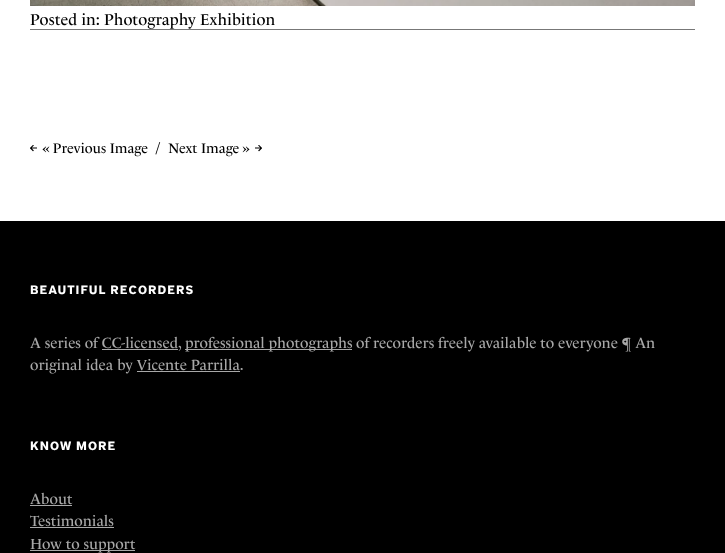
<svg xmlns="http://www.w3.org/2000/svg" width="725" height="553">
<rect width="100%" height="100%" fill="#fff"/>
<image x="30" y="0" width="665" height="6" href="media/1.png"/>
<text x="30" y="25" style="font-family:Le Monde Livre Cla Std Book;font-size:16px;fill:#000">Posted in: Photography Exhibition</text>
<rect x="30" y="29" width="665" height="1" fill="#777"/>
<image x="30" y="145" width="7" height="7" href="media/2.png"/>
<text x="42" y="153" style="font-family:Le Monde Livre Cla Std Book;font-size:14px;fill:#000">« Previous Image</text>
<text x="156" y="153" style="font-family:Le Monde Livre Cla Std Book;font-size:14px;fill:#000">/</text>
<text x="168" y="153" style="font-family:Le Monde Livre Cla Std Book;font-size:14px;fill:#000">Next Image »</text>
<image x="255" y="145" width="7" height="7" href="media/3.png"/>
<rect y="221" width="725" height="332" fill="#000"/>
<text x="30" y="294" style="font-family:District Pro;font-size:12px;font-weight:bold;letter-spacing:1px;fill:#fff">BEAUTIFUL RECORDERS</text>
<text x="30" y="348" style="font-family:Le Monde Livre Cla Std Book;font-size:15px;fill:#a8a8a8">A series of CC-licensed,</text>
<rect x="185" y="349" width="167" height="1" fill="#a8a8a8"/>
<text x="185" y="348" style="font-family:Le Monde Livre Cla Std Book;font-size:15px;fill:#a8a8a8">professional photographs</text>
<text x="356" y="348" style="font-family:Le Monde Livre Cla Std Book;font-size:15px;fill:#a8a8a8">of recorders freely available to everyone ¶ An</text>
<rect x="102" y="349" width="76" height="1" fill="#a8a8a8"/>
<text x="30" y="370" style="font-family:Le Monde Livre Cla Std Book;font-size:15px;fill:#a8a8a8">original idea by Vicente Parrilla.</text>
<rect x="137" y="371" width="103" height="1" fill="#a8a8a8"/>
<text x="30" y="450" style="font-family:District Pro;font-size:12px;font-weight:bold;letter-spacing:1px;fill:#fff">KNOW MORE</text>
<text x="30" y="504" style="font-family:Le Monde Livre Cla Std Book;font-size:15px;fill:#a8a8a8">About</text>
<rect x="30" y="505" width="42" height="1" fill="#a8a8a8"/>
<text x="30" y="526" style="font-family:Le Monde Livre Cla Std Book;font-size:15px;fill:#a8a8a8">Testimonials</text>
<rect x="30" y="527" width="84" height="1" fill="#a8a8a8"/>
<rect x="30" y="550" width="105" height="1" fill="#a8a8a8"/>
<text x="30" y="549" style="font-family:Le Monde Livre Cla Std Book;font-size:15px;fill:#a8a8a8">How to support</text>
</svg>
